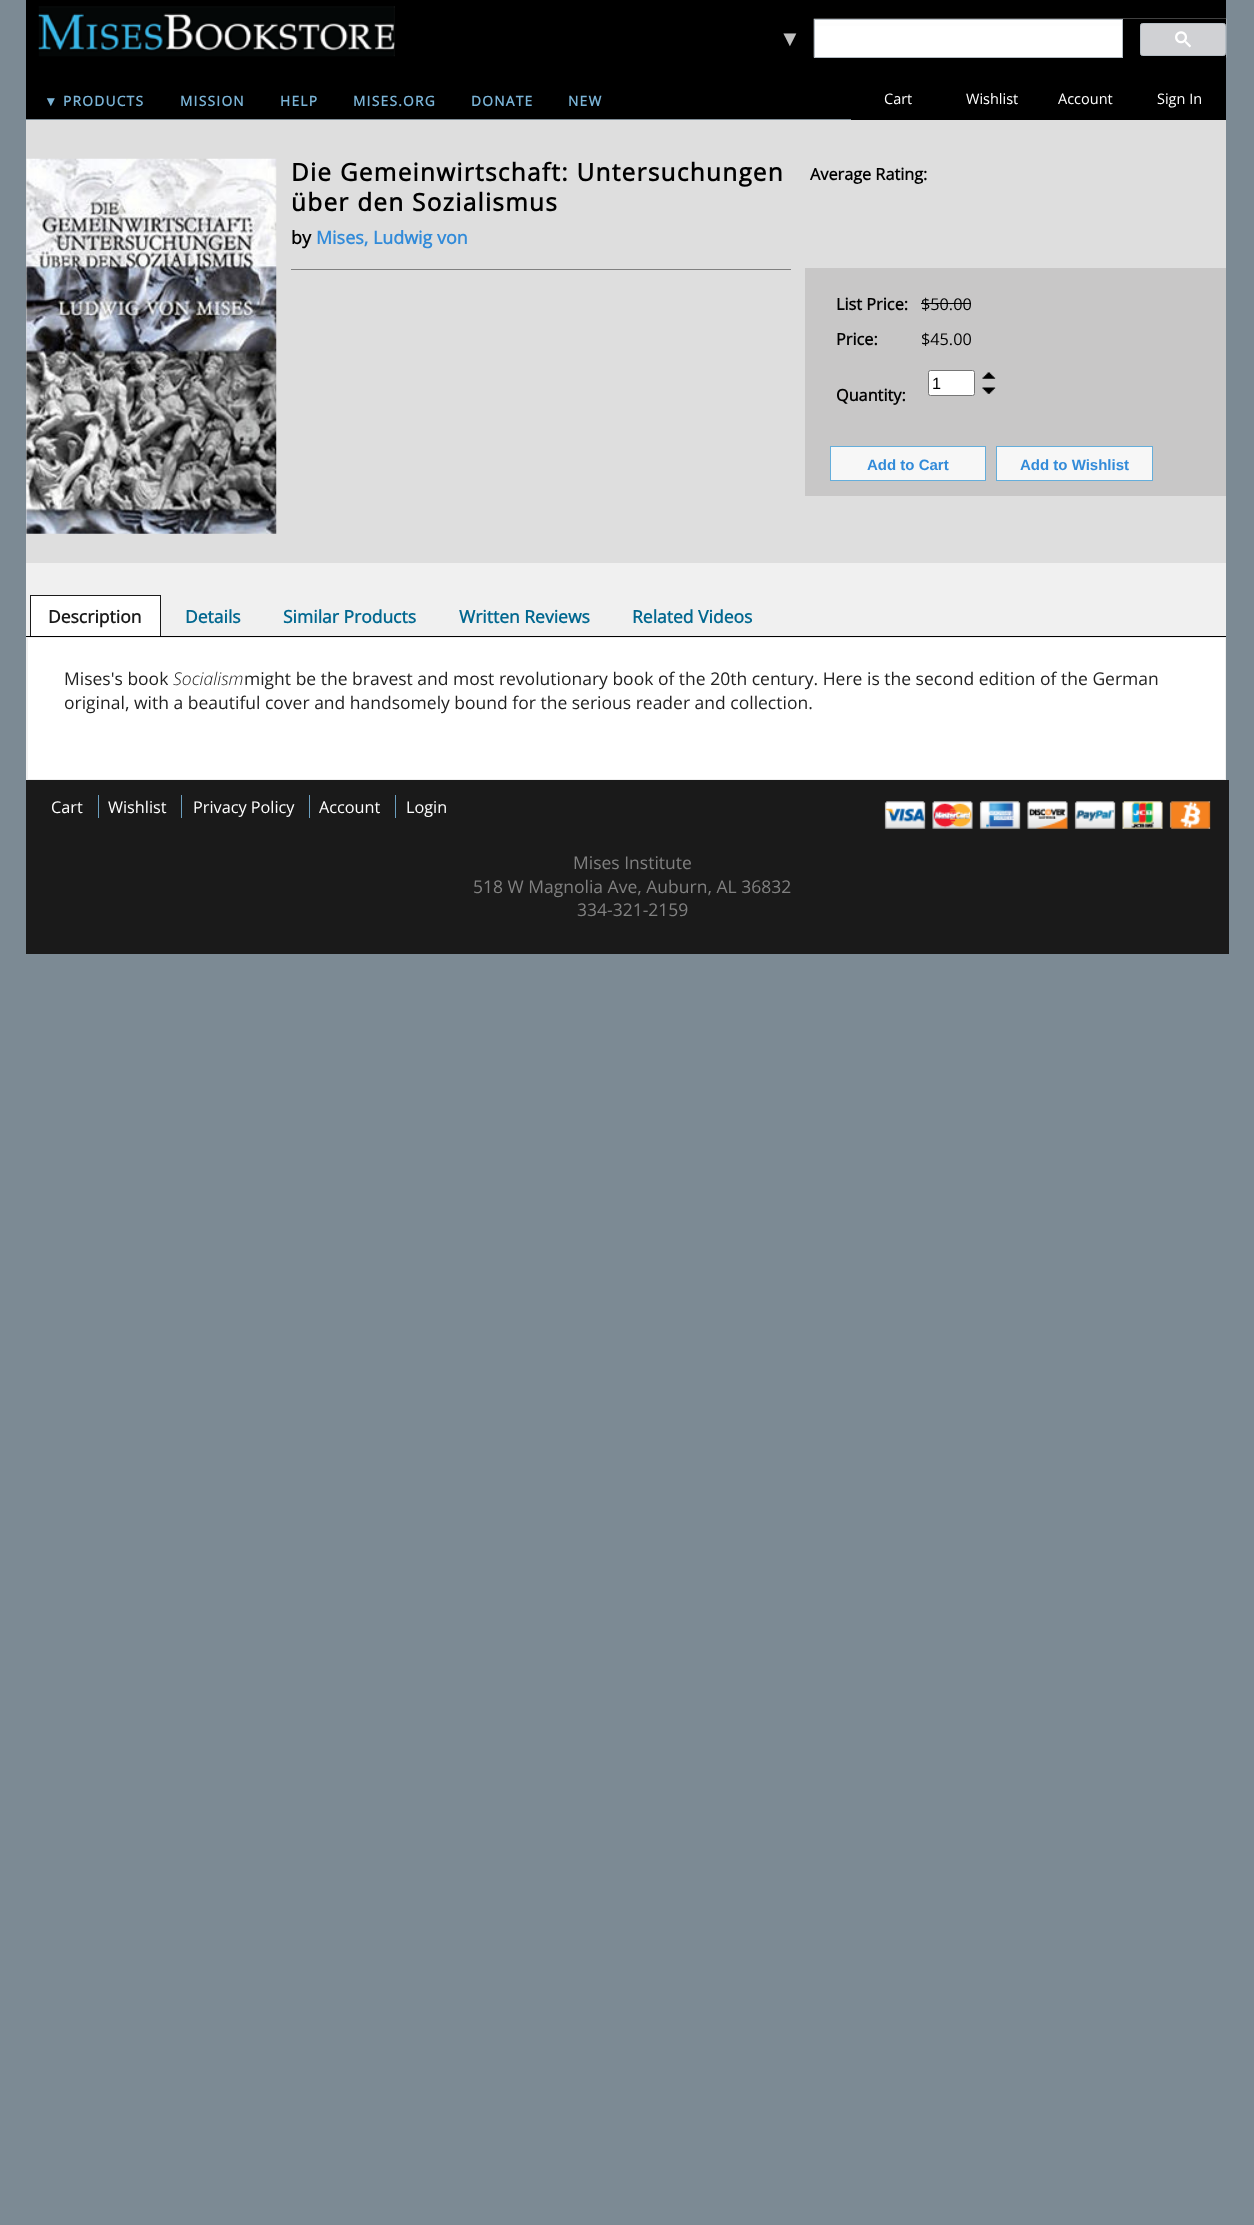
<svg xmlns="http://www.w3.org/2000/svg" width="1254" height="2225">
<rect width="100%" height="100%" fill="#7c8a94"/>
<rect x="26" width="1200" height="119" fill="#000"/>
<image x="38" y="6" width="357" height="51" href="media/1.png"/>
<text x="44" y="106" style="font-family:Liberation Sans;font-size:13.75px;font-weight:bold;letter-spacing:1.25px;fill:#7ab3d6">▼</text>
<text x="63" y="106" style="font-family:Open Sans;font-size:13.75px;font-weight:bold;letter-spacing:1.25px;fill:#7ab3d6">PRODUCTS</text>
<text x="180" y="106" style="font-family:Open Sans;font-size:13.75px;font-weight:bold;letter-spacing:1.25px;fill:#7ab3d6">MISSION</text>
<text x="280" y="106" style="font-family:Open Sans;font-size:13.75px;font-weight:bold;letter-spacing:1.25px;fill:#7ab3d6">HELP</text>
<text x="353" y="106" style="font-family:Open Sans;font-size:13.75px;font-weight:bold;letter-spacing:1.25px;fill:#7ab3d6">MISES.ORG</text>
<text x="471" y="106" style="font-family:Open Sans;font-size:13.75px;font-weight:bold;letter-spacing:1.25px;fill:#7ab3d6">DONATE</text>
<text x="568" y="106" style="font-family:Open Sans;font-size:13.75px;font-weight:bold;letter-spacing:1.25px;fill:#7ab3d6">NEW</text>
<text x="779" y="46" style="font-family:Liberation Sans;font-size:22px;fill:#c0c0c0">▼</text>
<image x="813" y="18" width="414" height="40" href="media/2.png"/>
<rect x="1123" y="19" width="103" height="39" fill="#000"/>
<rect x="815" y="26" width="307" height="31" fill="#fff"/>
<rect x="814.5" y="19.5" width="308" height="38" fill="none" stroke="#b6bec5"/>
<rect x="1140.5" y="23.5" width="85" height="32" rx="2" fill="#d0d1d4" stroke="#b6bec5"/>
<image x="1175" y="31" width="16" height="17" href="media/3.png"/>
<text x="884" y="104" style="font-family:Open Sans;font-size:14.5px;fill:#fff">Cart</text>
<text x="966" y="104" style="font-family:Open Sans;font-size:14.5px;fill:#fff">Wishlist</text>
<text x="1058" y="104" style="font-family:Open Sans;font-size:14.5px;fill:#fff">Account</text>
<rect x="851" y="119" width="375" height="1" fill="#000"/>
<text x="1157" y="104" style="font-family:Open Sans;font-size:14.5px;fill:#fff">Sign In</text>
<rect x="26" y="563" width="1200" height="217" fill="#f0f0f0"/>
<rect x="26" y="120" width="1200" height="443" fill="#dedede"/>
<image x="26" y="158" width="251" height="376" href="media/4.png"/>
<text x="291" y="181" style="font-family:Open Sans;font-size:24.4px;font-weight:bold;letter-spacing:1.25px;fill:#000">Die Gemeinwirtschaft: Untersuchungen</text>
<text x="291" y="211" style="font-family:Open Sans;font-size:24.4px;font-weight:bold;letter-spacing:1.25px;fill:#000">über den Sozialismus</text>
<rect x="291" y="269" width="500" height="1" fill="#808080"/>
<text x="291" y="244" style="font-family:Open Sans;font-size:17.9px;font-weight:bold;fill:#000">by</text>
<text x="316" y="244" style="font-family:Open Sans;font-size:17.9px;font-weight:bold;fill:#328bd9">Mises, Ludwig von</text>
<text x="810" y="180" style="font-family:Open Sans;font-size:16.25px;font-weight:bold;fill:#000">Average Rating:</text>
<rect x="805" y="268" width="421" height="228" fill="#c8c7c7"/>
<text x="836" y="310" style="font-family:Open Sans;font-size:16.25px;font-weight:bold;fill:#000">List Price:</text>
<text x="921" y="310" style="font-family:Open Sans;font-size:16.25px;fill:#000">$50.00</text>
<rect x="921" y="303" width="50" height="1" fill="#000"/>
<text x="836" y="345" style="font-family:Open Sans;font-size:16.25px;font-weight:bold;fill:#000">Price:</text>
<text x="921" y="345" style="font-family:Open Sans;font-size:16.25px;fill:#000">$45.00</text>
<rect x="928.5" y="370.5" width="46" height="25" rx="2" fill="#fff" stroke="#767676"/>
<text x="932" y="389" style="font-family:Liberation Sans;font-size:16.25px;fill:#000">1</text>
<image x="982" y="372" width="14" height="7" href="media/5.png"/>
<image x="982" y="387" width="14" height="7" href="media/6.png"/>
<text x="836" y="401" style="font-family:Open Sans;font-size:16.25px;font-weight:bold;fill:#000">Quantity:</text>
<rect x="830.5" y="446.5" width="155" height="34" fill="#f7f7f7" stroke="#65aedb"/>
<text x="867" y="470" style="font-family:Liberation Sans;font-size:15px;font-weight:bold;fill:#328bd9">Add to Cart</text>
<rect x="996.5" y="446.5" width="156" height="34" fill="#f7f7f7" stroke="#65aedb"/>
<text x="1020" y="470" style="font-family:Liberation Sans;font-size:15px;font-weight:bold;fill:#328bd9">Add to Wishlist</text>
<rect x="28" y="638" width="1197" height="141" fill="#fff"/>
<rect x="26" y="636" width="1200" height="1" fill="#000"/>
<rect x="31" y="596" width="129" height="40" fill="#fff"/>
<rect x="30" y="595" width="131" height="1" fill="#1a1a1a"/>
<rect x="160" y="595" width="1" height="41" fill="#1a1a1a"/>
<rect x="30" y="595" width="1" height="41" fill="#1a1a1a"/>
<text x="48" y="623" style="font-family:Open Sans;font-size:17.5px;font-weight:bold;fill:#1a1a1a">Description</text>
<text x="185" y="623" style="font-family:Open Sans;font-size:17.5px;font-weight:bold;fill:#026890">Details</text>
<text x="283" y="623" style="font-family:Open Sans;font-size:17.5px;font-weight:bold;fill:#026890">Similar Products</text>
<text x="459" y="623" style="font-family:Open Sans;font-size:17.5px;font-weight:bold;fill:#026890">Written Reviews</text>
<text x="632" y="623" style="font-family:Open Sans;font-size:17.5px;font-weight:bold;fill:#026890">Related Videos</text>
<text x="64" y="685" style="font-family:Open Sans;font-size:17.5px;fill:#222">Mises's book</text>
<text x="173" y="685" style="font-family:Open Sans;font-size:17.5px;font-weight:300;font-style:italic;fill:#222">Socialism</text>
<text x="244" y="685" style="font-family:Open Sans;font-size:17.5px;fill:#222">might be the bravest and most revolutionary book of the 20th century. Here is the second edition of the German</text>
<text x="64" y="709" style="font-family:Open Sans;font-size:17.5px;fill:#222">original, with a beautiful cover and handsomely bound for the serious reader and collection.</text>
<rect x="26" y="780" width="1203" height="174" fill="#1a1a1a"/>
<text x="51" y="813" style="font-family:Open Sans;font-size:16.25px;fill:#fff">Cart</text>
<text x="108" y="813" style="font-family:Open Sans;font-size:16.25px;fill:#fff">Wishlist</text>
<rect x="98" y="795" width="1" height="23" fill="#6b9fbf"/>
<text x="193" y="813" style="font-family:Open Sans;font-size:16.25px;fill:#fff">Privacy Policy</text>
<rect x="181" y="795" width="1" height="23" fill="#6b9fbf"/>
<text x="319" y="813" style="font-family:Open Sans;font-size:16.25px;fill:#fff">Account</text>
<rect x="309" y="795" width="1" height="23" fill="#6b9fbf"/>
<text x="406" y="813" style="font-family:Open Sans;font-size:16.25px;fill:#fff">Login</text>
<rect x="395" y="795" width="1" height="23" fill="#6b9fbf"/>
<image x="884" y="801" width="327" height="28" href="media/7.png"/>
<text x="573" y="869" style="font-family:Open Sans;font-size:17.5px;fill:#808080">Mises Institute</text>
<text x="473" y="893" style="font-family:Open Sans;font-size:17.5px;fill:#808080">518 W Magnolia Ave, Auburn, AL 36832</text>
<text x="577" y="916" style="font-family:Open Sans;font-size:17.5px;fill:#808080">334-321-2159</text>
</svg>
